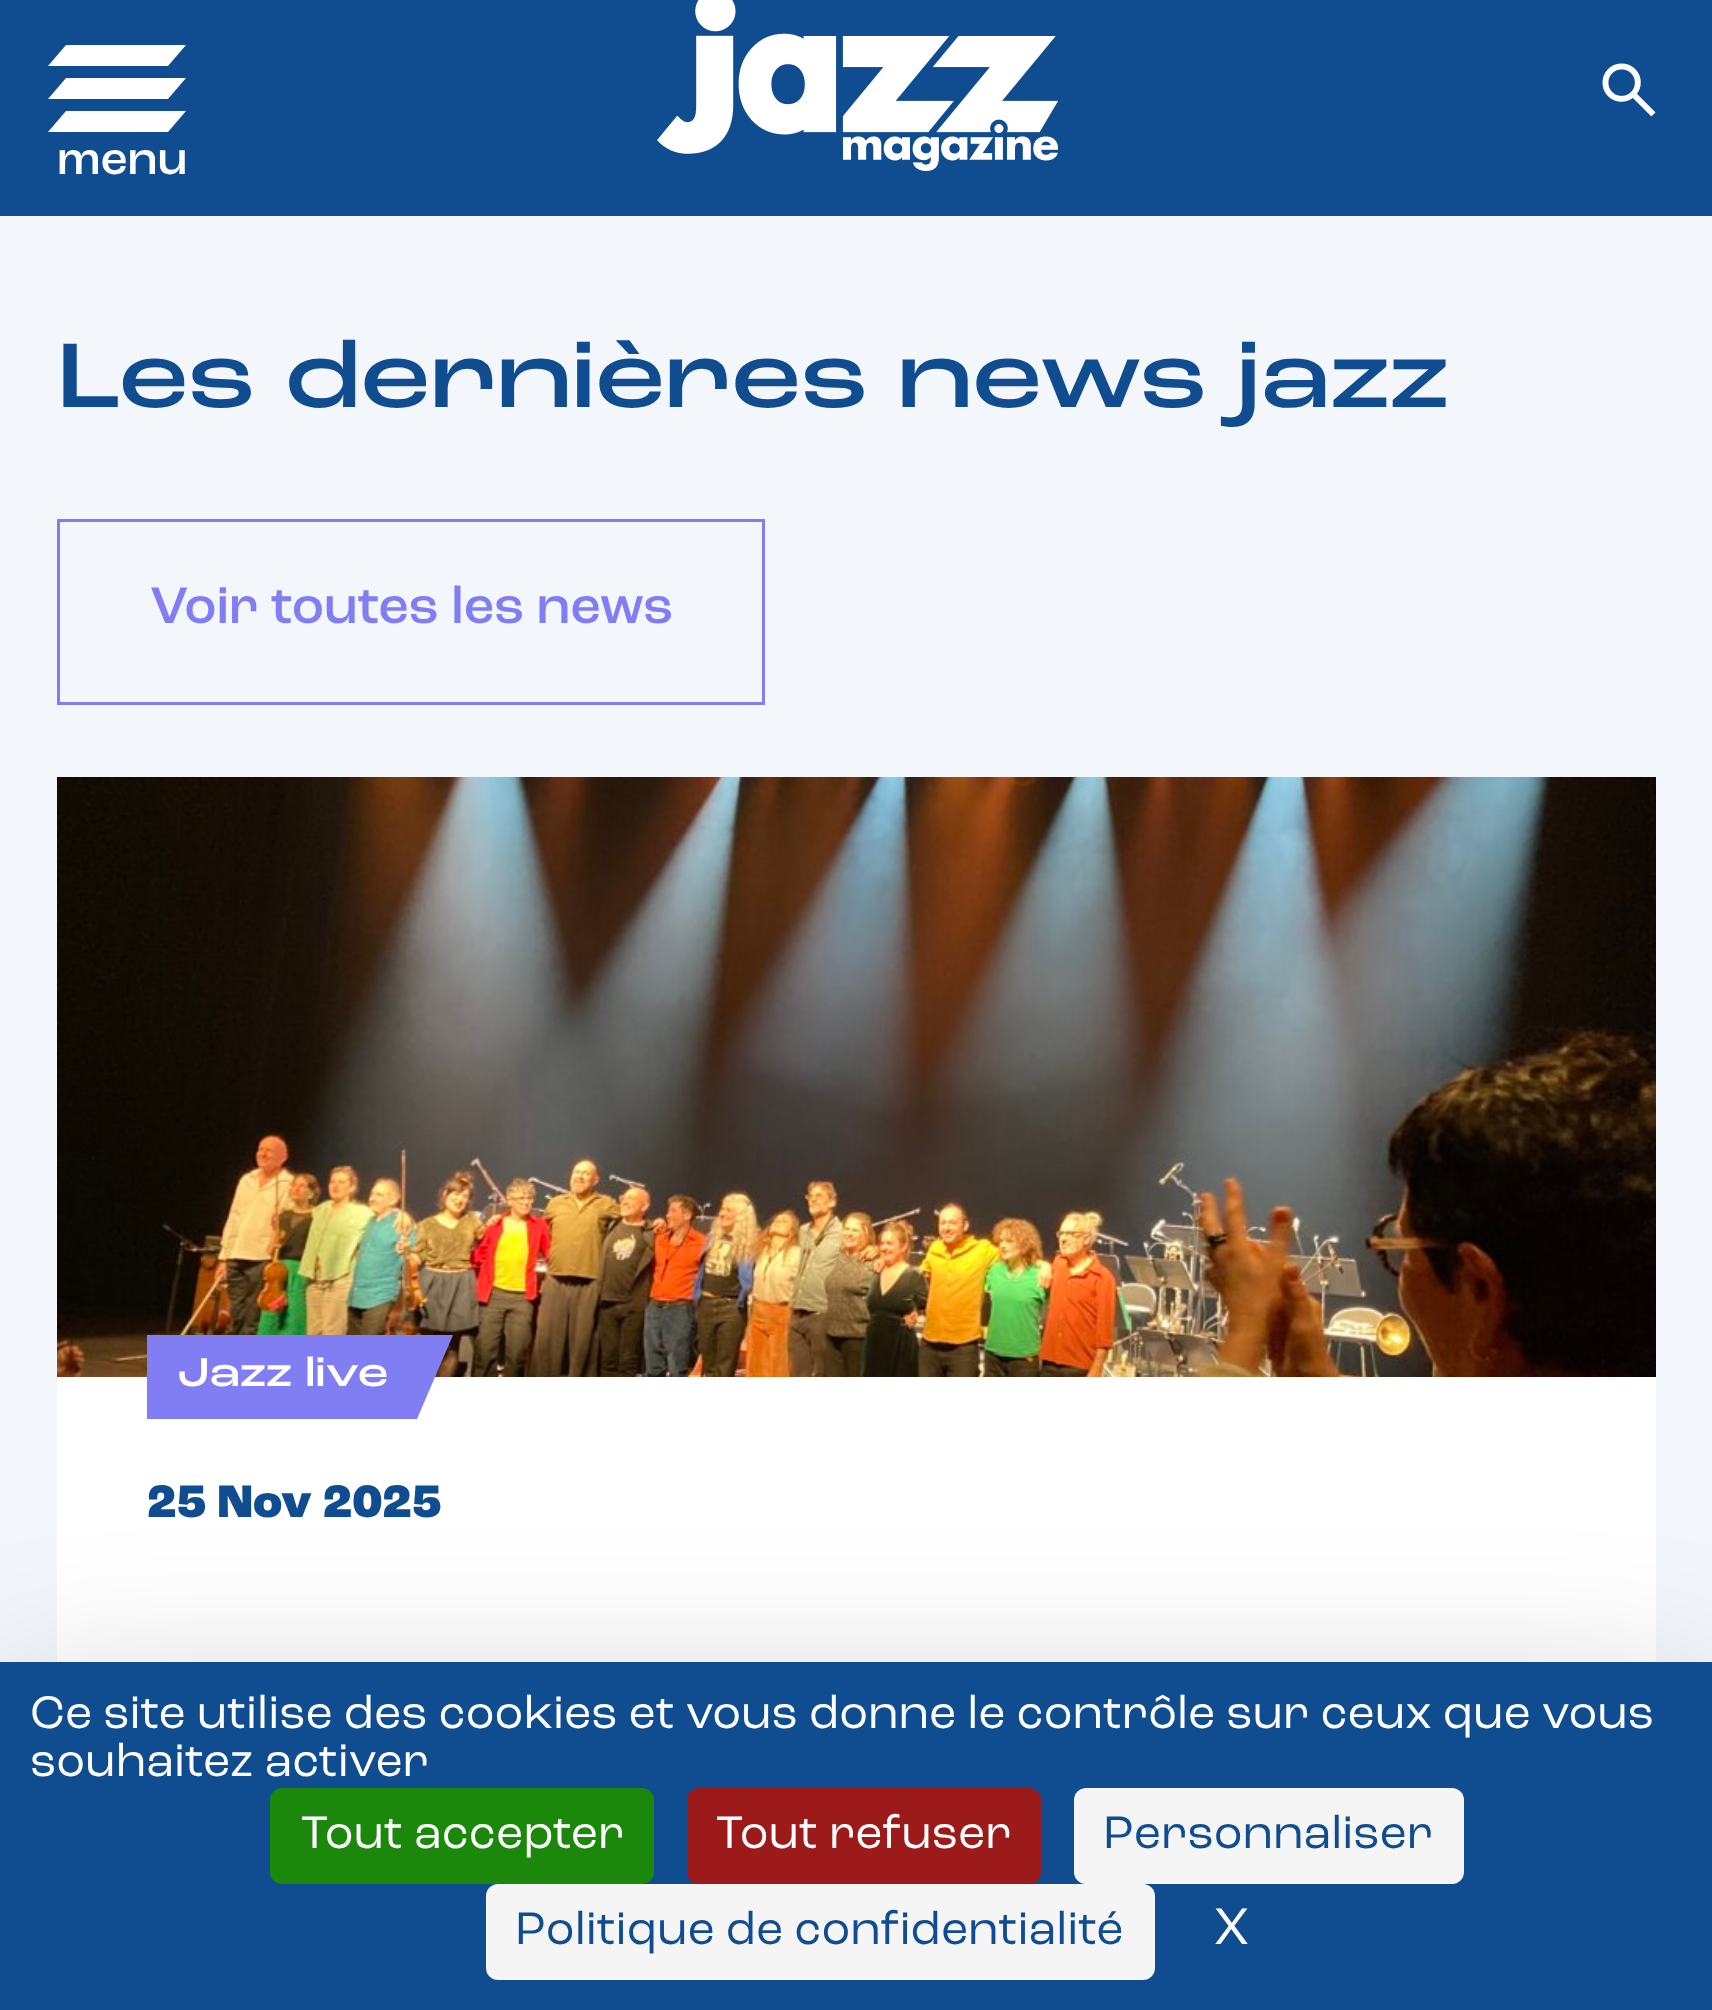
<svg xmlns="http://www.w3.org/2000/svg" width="1712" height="2010">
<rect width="100%" height="100%" fill="#f3f6fa"/>
<rect width="1712" height="216" fill="#104c90"/>
<image x="657" y="0" width="401" height="171" href="media/1.png"/>
<image x="1602" y="63" width="54" height="54" href="media/2.png"/>
<path d="M66 45h120l-18 21h-120z" fill="#fff"/>
<path d="M66 78h120l-18 21h-120z" fill="#fff"/>
<path d="M66 111h120l-18 21h-120z" fill="#fff"/>
<text x="57" y="174" style="font-family:'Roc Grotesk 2';font-size:48px;font-weight:500;fill:#fff">menu</text>
<text x="57" y="407" style="font-family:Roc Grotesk;font-size:96px;font-weight:500;fill:#104c90">Les dernières news jazz</text>
<rect x="58.5" y="520.5" width="705" height="183" fill="none" stroke="#817ef4" stroke-width="3"/>
<text x="150" y="623" style="font-family:'Roc Grotesk 2';font-size:54px;font-weight:500;fill:#817ef4">Voir toutes les news</text>
<rect x="57" y="1377" width="1599" height="285" fill="#fff"/>
<image x="57" y="777" width="1599" height="600" href="media/3.png"/>
<rect x="147" y="1335" width="270" height="84" fill="#817ef4"/>
<text x="177" y="1386" style="font-family:Roc Grotesk;font-size:42px;font-weight:500;fill:#fff">Jazz live</text>
<path d="M417 1335h36l-36 84z" fill="#817ef4"/>
<text x="147" y="1517" style="font-family:Roc Grotesk;font-size:48px;font-weight:800;fill:#104c90">25 Nov 2025</text>
<rect y="1722" width="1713" height="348" fill="#00000040" filter="blur(90px)"/>
<rect y="1662" width="1712" height="348" fill="#104c90"/>
<text x="30" y="1728" style="font-family:Roc Grotesk;font-size:48px;fill:#fff">Ce site utilise des cookies et vous donne le contrôle sur ceux que vous</text>
<text x="30" y="1776" style="font-family:Roc Grotesk;font-size:48px;fill:#fff">souhaitez activer</text>
<rect x="270" y="1788" width="384" height="96" rx="12" fill="#1b870b"/>
<text x="301" y="1848" style="font-family:Roc Grotesk;font-size:48px;fill:#fff">Tout accepter</text>
<rect x="687" y="1788" width="354" height="96" rx="12" fill="#9c1a1a"/>
<text x="716" y="1848" style="font-family:Roc Grotesk;font-size:48px;fill:#fff">Tout refuser</text>
<rect x="1074" y="1788" width="390" height="96" rx="12" fill="#f5f5f5"/>
<text x="1103" y="1848" style="font-family:Roc Grotesk;font-size:48px;fill:#104c90">Personnaliser</text>
<rect x="486" y="1884" width="669" height="96" rx="12" fill="#f5f5f5"/>
<text x="515" y="1944" style="font-family:Roc Grotesk;font-size:48px;fill:#104c90">Politique de confidentialité</text>
<text x="1214" y="1944" style="font-family:Roc Grotesk;font-size:54px;fill:#fff">X</text>
</svg>
